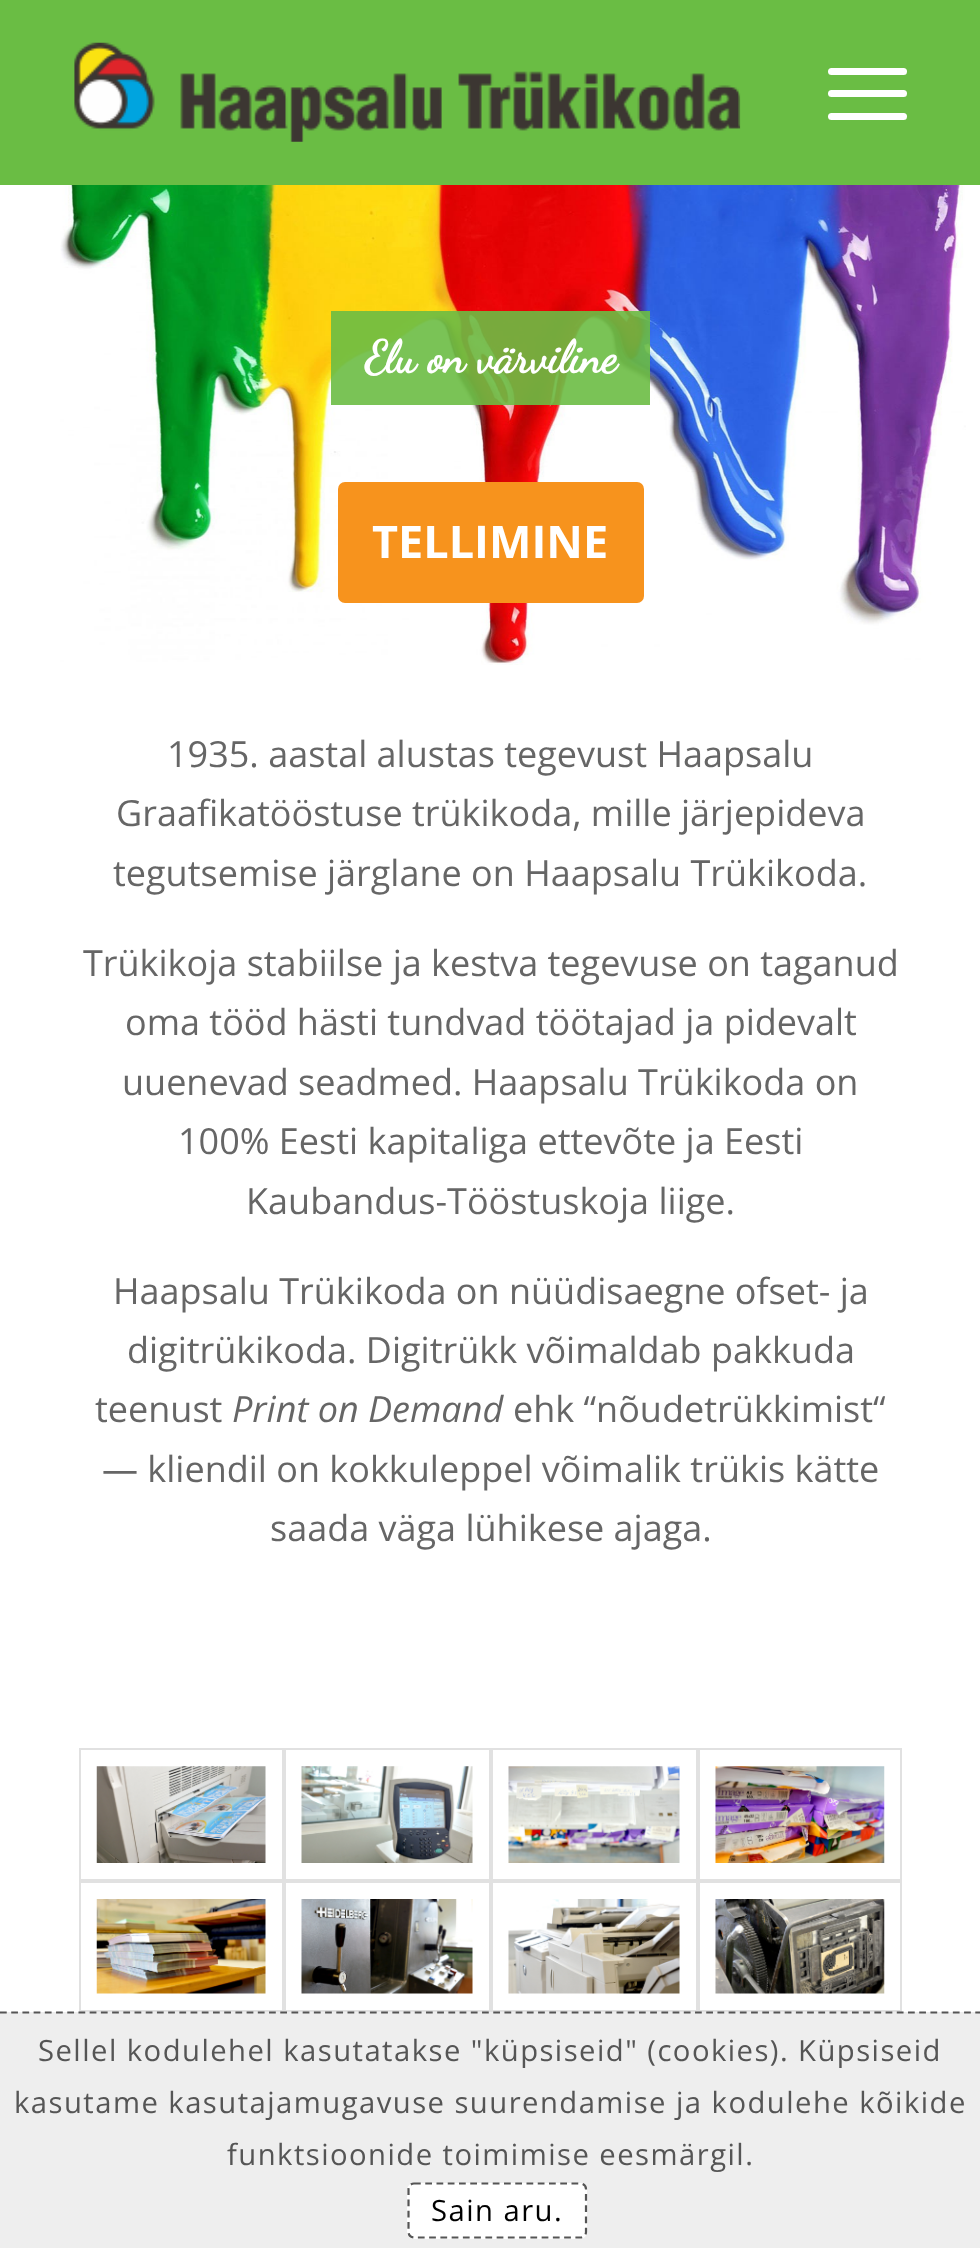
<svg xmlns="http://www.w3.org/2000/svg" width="980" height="2248">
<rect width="100%" height="100%" fill="#fff"/>
<rect width="980" height="185" fill="#6abd44"/>
<image x="74" y="42" width="667" height="100" href="media/1.png"/>
<rect x="828" y="90" width="79" height="7" rx="3.5" fill="#fff"/>
<rect x="828" y="68" width="79" height="7" rx="3.5" fill="#fff"/>
<rect x="828" y="113" width="79" height="7" rx="3.5" fill="#fff"/>
<image x="60" y="185" width="906" height="480" href="media/2.png"/>
<rect x="331" y="311" width="319" height="94" fill="#6bbd44e6"/>
<text x="365" y="372" style="font-family:Dancing Script;font-size:45px;font-weight:bold;fill:#fff">Elu on värviline</text>
<rect x="338" y="482" width="306" height="121" rx="7" fill="#f7931d"/>
<text x="372" y="558" style="font-family:Open Sans;font-size:45px;font-weight:bold;fill:#fff">TELLIMINE</text>
<text x="167" y="767" style="font-family:Open Sans;font-size:36px;fill:#666">1935. aastal alustas tegevust Haapsalu</text>
<text x="116" y="826" style="font-family:Open Sans;font-size:36px;fill:#666">Graafikatööstuse trükikoda, mille järjepideva</text>
<text x="113" y="886" style="font-family:Open Sans;font-size:36px;fill:#666">tegutsemise järglane on Haapsalu Trükikoda.</text>
<text x="83" y="976" style="font-family:Open Sans;font-size:36px;fill:#666">Trükikoja stabiilse ja kestva tegevuse on taganud</text>
<text x="125" y="1035" style="font-family:Open Sans;font-size:36px;fill:#666">oma tööd hästi tundvad töötajad ja pidevalt</text>
<text x="122" y="1095" style="font-family:Open Sans;font-size:36px;fill:#666">uuenevad seadmed. Haapsalu Trükikoda on</text>
<text x="178" y="1154" style="font-family:Open Sans;font-size:36px;fill:#666">100% Eesti kapitaliga ettevõte ja Eesti</text>
<text x="246" y="1214" style="font-family:Open Sans;font-size:36px;fill:#666">Kaubandus-Tööstuskoja liige.</text>
<text x="113" y="1304" style="font-family:Open Sans;font-size:36px;fill:#666">Haapsalu Trükikoda on nüüdisaegne ofset- ja</text>
<text x="127" y="1363" style="font-family:Open Sans;font-size:36px;fill:#666">digitrükikoda. Digitrükk võimaldab pakkuda</text>
<text x="95" y="1422" style="font-family:Open Sans;font-size:36px;fill:#666">teenust</text>
<text x="232" y="1422" style="font-family:Open Sans;font-size:36px;font-style:italic;fill:#666">Print on Demand</text>
<text x="513" y="1422" style="font-family:Open Sans;font-size:36px;fill:#666">ehk “nõudetrükkimist“</text>
<text x="102" y="1482" style="font-family:Open Sans;font-size:36px;fill:#666">— kliendil on kokkuleppel võimalik trükis kätte</text>
<text x="270" y="1541" style="font-family:Open Sans;font-size:36px;fill:#666">saada väga lühikese ajaga.</text>
<rect x="80" y="1749" width="203" height="131" fill="none" stroke="#e1e1e1" stroke-width="2"/>
<image x="96" y="1766" width="170" height="97" href="media/3.png"/>
<rect x="285" y="1749" width="205" height="131" fill="none" stroke="#e1e1e1" stroke-width="2"/>
<image x="301" y="1766" width="172" height="97" href="media/4.png"/>
<rect x="492" y="1749" width="205" height="131" fill="none" stroke="#e1e1e1" stroke-width="2"/>
<image x="508" y="1766" width="172" height="97" href="media/5.png"/>
<rect x="699" y="1749" width="202" height="131" fill="none" stroke="#e1e1e1" stroke-width="2"/>
<image x="715" y="1766" width="170" height="97" href="media/6.png"/>
<rect x="80" y="1882" width="203" height="129" fill="none" stroke="#e1e1e1" stroke-width="2"/>
<image x="96" y="1899" width="170" height="95" href="media/7.png"/>
<rect x="285" y="1882" width="205" height="129" fill="none" stroke="#e1e1e1" stroke-width="2"/>
<image x="301" y="1899" width="172" height="95" href="media/8.png"/>
<rect x="492" y="1882" width="205" height="129" fill="none" stroke="#e1e1e1" stroke-width="2"/>
<image x="508" y="1899" width="172" height="95" href="media/9.png"/>
<rect x="699" y="1882" width="202" height="129" fill="none" stroke="#e1e1e1" stroke-width="2"/>
<image x="715" y="1899" width="170" height="95" href="media/10.png"/>
<rect y="2012" width="980" height="236" fill="#eee"/>
<path d="M0 2012.5h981" fill="none" stroke="#555" stroke-width="2.2" stroke-dasharray="6.75 4.46"/>
<text x="38" y="2061" style="font-family:Open Sans;font-size:29.25px;letter-spacing:1.45px;fill:#555">Sellel kodulehel kasutatakse "küpsiseid" (cookies). Küpsiseid</text>
<text x="14" y="2113" style="font-family:Open Sans;font-size:29.25px;letter-spacing:1.45px;fill:#555">kasutame kasutajamugavuse suurendamise ja kodulehe kõikide</text>
<text x="227" y="2165" style="font-family:Open Sans;font-size:29.25px;letter-spacing:1.45px;fill:#555">funktsioonide toimimise eesmärgil.</text>
<rect x="407" y="2183" width="180" height="56" rx="7" fill="#fff"/>
<path d="M414 2183.5h166.5c3 0 5.5 2.5 5.5 5.5v43c0 3-2.5 5.5-5.5 5.5h-166.5c-3 0-5.5-2.5-5.5-5.5v-43c0-3 2.5-5.5 5.5-5.5z" fill="none" stroke="#555" stroke-width="2.2" stroke-dasharray="6.75 4.5"/>
<text x="431" y="2221" style="font-family:Open Sans;font-size:29.25px;letter-spacing:1.45px;fill:#000">Sain aru.</text>
</svg>
